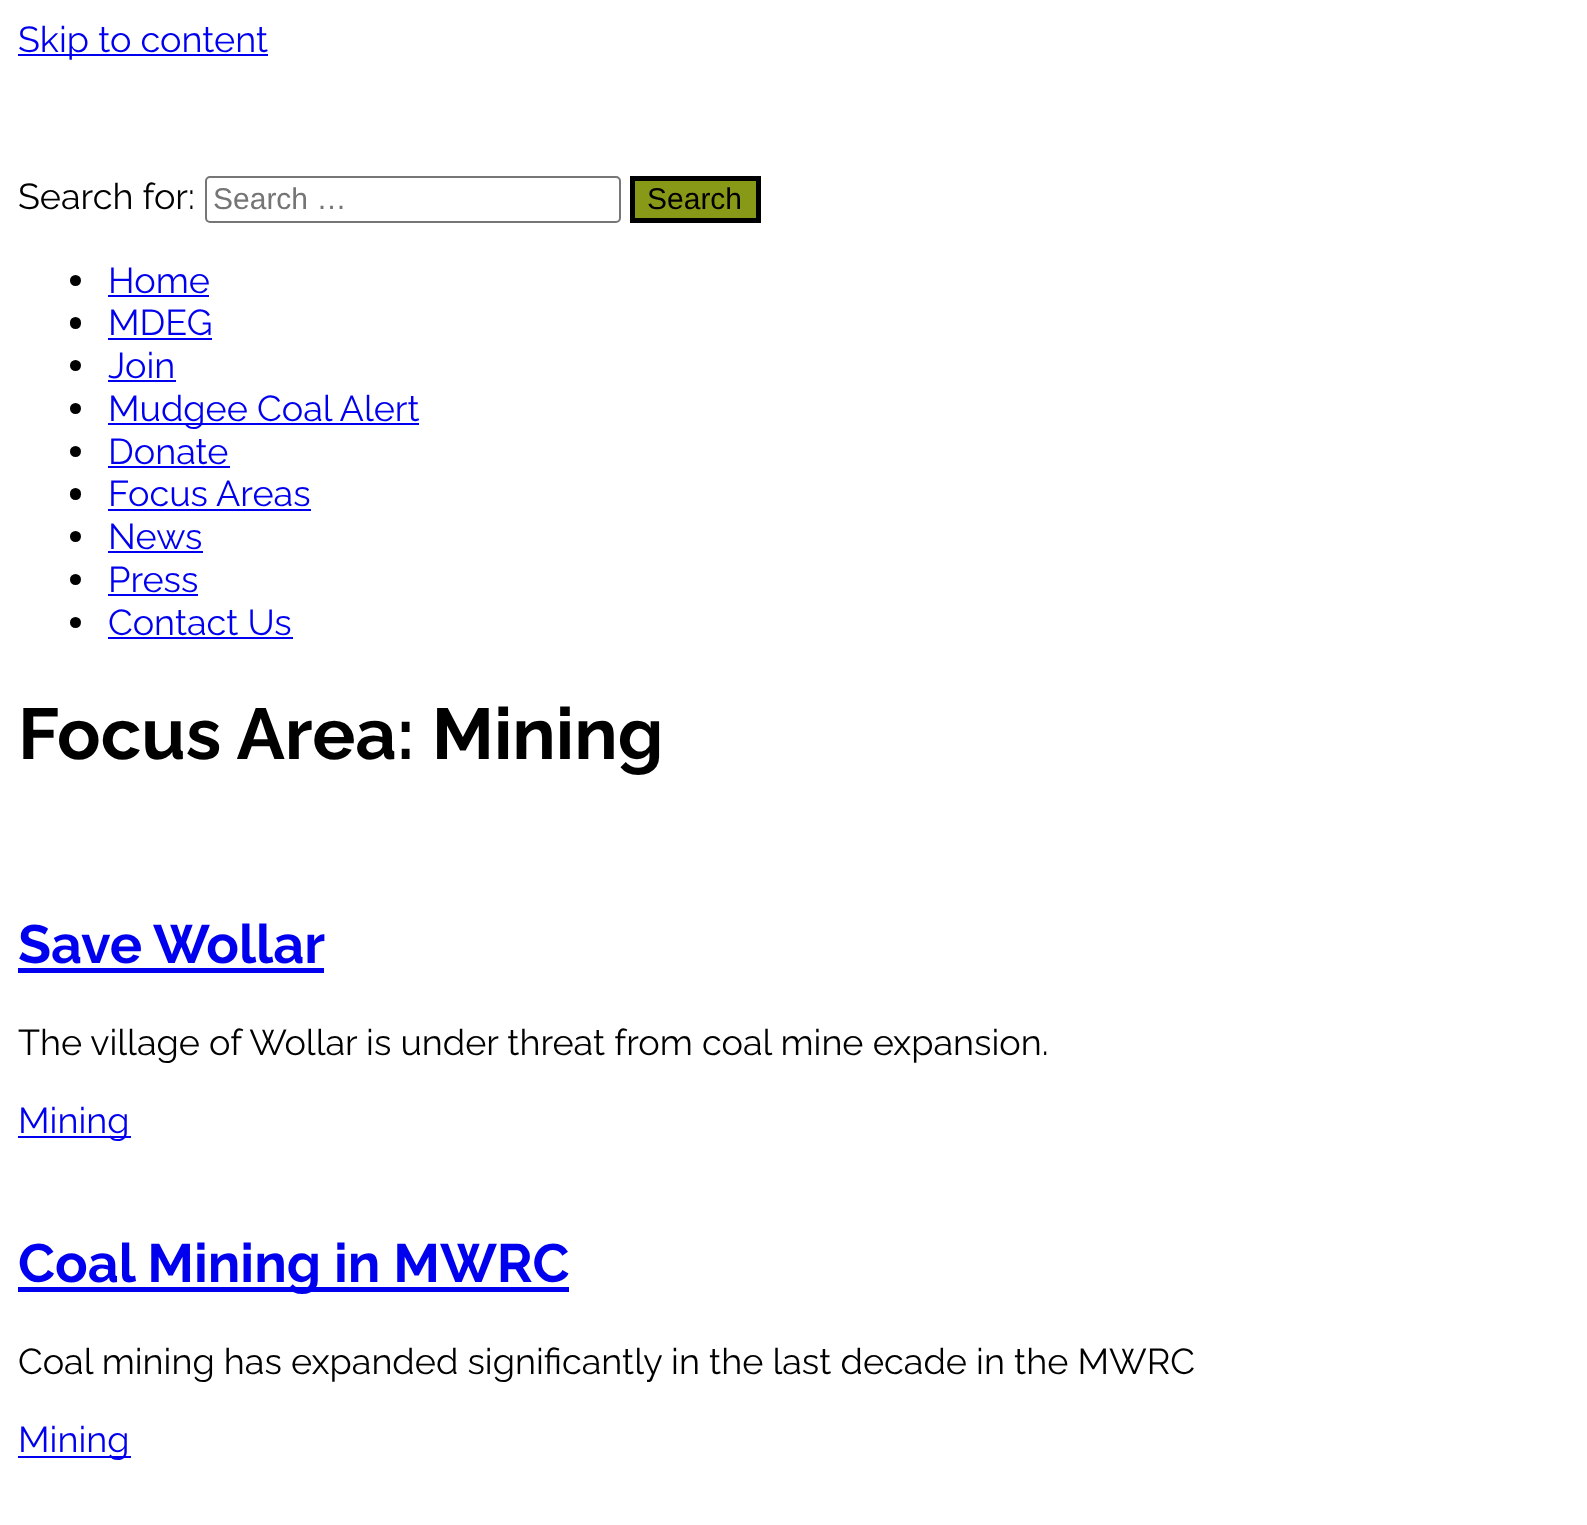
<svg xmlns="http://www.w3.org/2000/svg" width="1587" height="1525">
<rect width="100%" height="100%" fill="#fff"/>
<rect x="18" y="54" width="250" height="2" fill="#00e"/>
<text x="18" y="52" style="font-family:Raleway;font-size:36px;fill:#00e">Skip to content</text>
<text x="18" y="209" style="font-family:Raleway;font-size:36px;fill:#000">Search for:</text>
<rect x="206" y="177" width="414" height="45" rx="4" fill="none" stroke="#767676" stroke-width="2"/>
<text x="213" y="209" style="font-family:Liberation Sans;font-size:30px;fill:#757575">Search …</text>
<rect x="632.5" y="178.5" width="126" height="42" fill="#889817" stroke="#000" stroke-width="5"/>
<text x="647" y="209" style="font-family:Liberation Sans;font-size:30px;fill:#000">Search</text>
<circle cx="75.5" cy="280.5" r="5.5" fill="#000"/>
<text x="108" y="293" style="font-family:Raleway;font-size:36px;fill:#00e">Home</text>
<rect x="108" y="295" width="101" height="2" fill="#00e"/>
<rect x="70" y="317" width="11" height="12" rx="5.5" fill="#000"/>
<text x="108" y="335" style="font-family:Raleway;font-size:36px;fill:#00e">MDEG</text>
<rect x="108" y="338" width="104" height="2" fill="#00e"/>
<circle cx="75.5" cy="365.5" r="5.5" fill="#000"/>
<text x="108" y="378" style="font-family:Raleway;font-size:36px;fill:#00e">Join</text>
<rect x="108" y="380" width="68" height="2" fill="#00e"/>
<circle cx="75.5" cy="408.5" r="5.5" fill="#000"/>
<rect x="108" y="423" width="311" height="2" fill="#00e"/>
<text x="108" y="421" style="font-family:Raleway;font-size:36px;fill:#00e">Mudgee Coal Alert</text>
<circle cx="75.5" cy="451.5" r="5.5" fill="#000"/>
<text x="108" y="464" style="font-family:Raleway;font-size:36px;fill:#00e">Donate</text>
<rect x="108" y="466" width="122" height="2" fill="#00e"/>
<rect x="70" y="488" width="11" height="12" rx="5.5" fill="#000"/>
<text x="108" y="506" style="font-family:Raleway;font-size:36px;fill:#00e">Focus Areas</text>
<rect x="108" y="509" width="203" height="2" fill="#00e"/>
<circle cx="75.5" cy="536.5" r="5.5" fill="#000"/>
<text x="108" y="549" style="font-family:Raleway;font-size:36px;fill:#00e">News</text>
<rect x="108" y="551" width="95" height="2" fill="#00e"/>
<circle cx="75.5" cy="579.5" r="5.5" fill="#000"/>
<text x="108" y="592" style="font-family:Raleway;font-size:36px;fill:#00e">Press</text>
<rect x="108" y="594" width="90" height="2" fill="#00e"/>
<circle cx="75.5" cy="622.5" r="5.5" fill="#000"/>
<text x="108" y="635" style="font-family:Raleway;font-size:36px;fill:#00e">Contact Us</text>
<rect x="108" y="637" width="185" height="2" fill="#00e"/>
<text x="18" y="759" style="font-family:Raleway;font-size:72px;font-weight:bold;fill:#000">Focus Area: Mining</text>
<text x="18" y="963" style="font-family:Raleway;font-size:54px;font-weight:bold;fill:#00e">Save Wollar</text>
<rect x="18" y="968" width="306" height="5" fill="#00e"/>
<text x="18" y="1055" style="font-family:Raleway;font-size:36px;fill:#000">The village of Wollar is under threat from coal mine expansion.</text>
<rect x="18" y="1136" width="113" height="2" fill="#00e"/>
<text x="18" y="1133" style="font-family:Raleway;font-size:36px;fill:#00e">Mining</text>
<rect x="18" y="1287" width="551" height="5" fill="#00e"/>
<text x="18" y="1282" style="font-family:Raleway;font-size:54px;font-weight:bold;fill:#00e">Coal Mining in MWRC</text>
<text x="18" y="1374" style="font-family:Raleway;font-size:36px;fill:#000">Coal mining has expanded significantly in the last decade in the MWRC</text>
<rect x="18" y="1456" width="113" height="2" fill="#00e"/>
<text x="18" y="1452" style="font-family:Raleway;font-size:36px;fill:#00e">Mining</text>
</svg>
